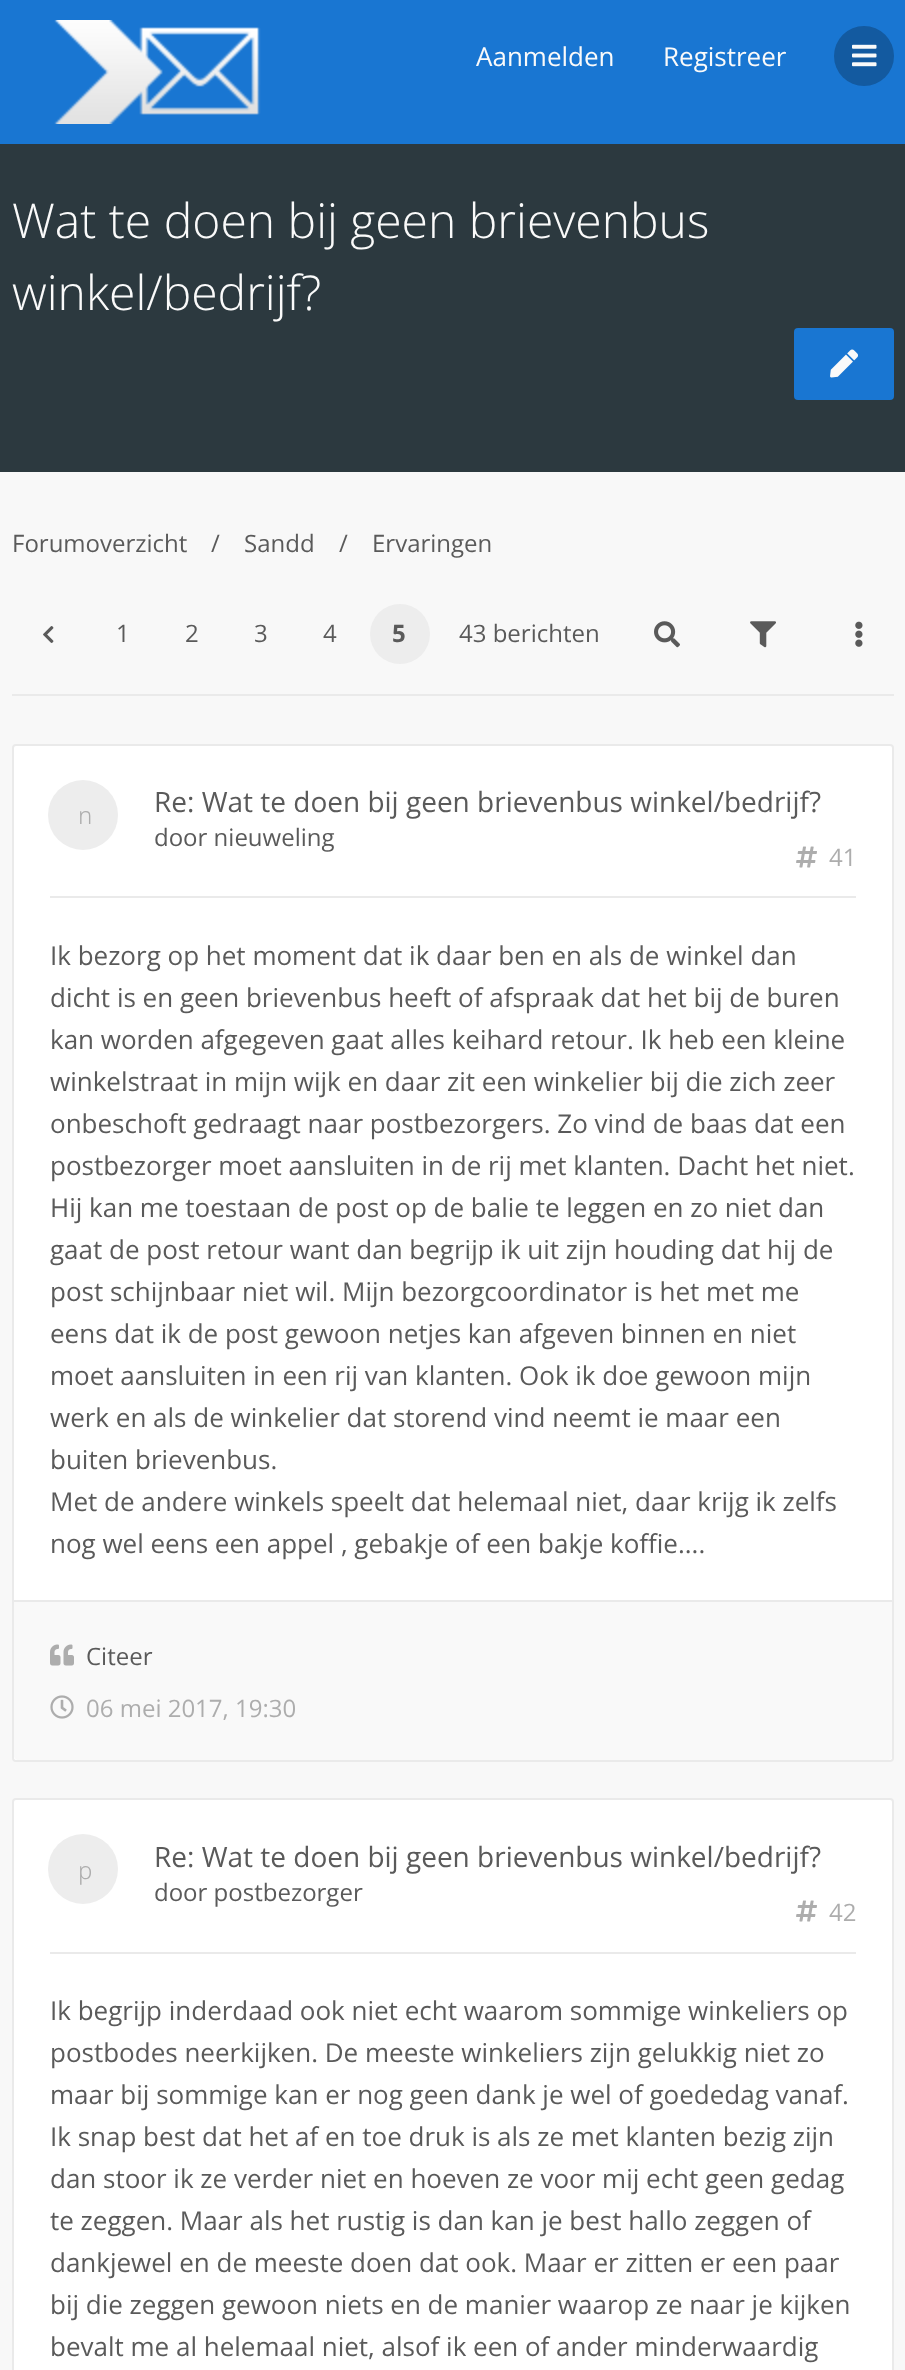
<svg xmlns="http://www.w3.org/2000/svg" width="905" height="2370">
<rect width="100%" height="100%" fill="#f8f8f8"/>
<rect width="905" height="144" fill="#1976d2"/>
<image x="54" y="20" width="207" height="104" href="media/1.png"/>
<text x="476" y="66" style="font-family:Open Sans;font-size:26px;fill:#fafafa">Aanmelden</text>
<text x="663" y="66" style="font-family:Open Sans;font-size:26px;fill:#fafafa">Registreer</text>
<circle cx="864" cy="56" r="30" fill="#135aa0"/>
<image x="852" y="44" width="25" height="23" href="media/2.png"/>
<rect y="144" width="905" height="328" fill="#2c393f"/>
<text x="12" y="238" style="font-family:Open Sans;font-size:48px;font-weight:300;fill:#fafafa">Wat te doen bij geen brievenbus</text>
<text x="12" y="310" style="font-family:Open Sans;font-size:48px;font-weight:300;fill:#fafafa">winkel/bedrijf?</text>
<rect x="794" y="328" width="100" height="72" rx="4" fill="#1976d2"/>
<image x="830" y="349" width="28" height="29" href="media/3.png"/>
<text x="12" y="552" style="font-family:Open Sans;font-size:24px;fill:#5a5a5a">Forumoverzicht</text>
<text x="211" y="552" style="font-family:Open Sans;font-size:24px;fill:#5a5a5a">/</text>
<text x="244" y="552" style="font-family:Open Sans;font-size:24px;fill:#5a5a5a">Sandd</text>
<text x="339" y="552" style="font-family:Open Sans;font-size:24px;fill:#5a5a5a">/</text>
<text x="372" y="552" style="font-family:Open Sans;font-size:24px;fill:#5a5a5a">Ervaringen</text>
<rect x="12" y="694" width="882" height="2" fill="#eaeaea"/>
<image x="43" y="626" width="11" height="17" href="media/4.png"/>
<text x="116" y="642" style="font-family:Open Sans;font-size:24px;fill:#5a5a5a">1</text>
<text x="185" y="642" style="font-family:Open Sans;font-size:24px;fill:#5a5a5a">2</text>
<text x="254" y="642" style="font-family:Open Sans;font-size:24px;fill:#5a5a5a">3</text>
<text x="323" y="642" style="font-family:Open Sans;font-size:24px;fill:#5a5a5a">4</text>
<circle cx="400" cy="634" r="30" fill="#ededed"/>
<text x="392" y="642" style="font-family:Open Sans;font-size:24px;font-weight:bold;fill:#5a5a5a">5</text>
<text x="459" y="642" style="font-family:Open Sans;font-size:24px;fill:#5a5a5a">43 berichten</text>
<image x="654" y="621" width="26" height="27" href="media/5.png"/>
<image x="750" y="621" width="26" height="27" href="media/6.png"/>
<image x="855" y="621" width="8" height="26" href="media/7.png"/>
<rect x="13" y="745" width="880" height="1016" rx="3" fill="#fff" stroke="#eaeaea" stroke-width="2"/>
<text x="154" y="812" style="font-family:Open Sans;font-size:28px;fill:#5a5a5a">Re: Wat te doen bij geen brievenbus winkel/bedrijf?</text>
<text x="154" y="846" style="font-family:Open Sans;font-size:24px;fill:#5a5a5a">door nieuweling</text>
<image x="796" y="846" width="21" height="22" href="media/8.png"/>
<text x="829" y="866" style="font-family:Open Sans;font-size:24px;fill:#adadad">41</text>
<rect x="50" y="896" width="806" height="2" fill="#eaeaea"/>
<text x="50" y="965" style="font-family:Open Sans;font-size:26px;fill:#5a5a5a">Ik bezorg op het moment dat ik daar ben en als de winkel dan</text>
<text x="50" y="1007" style="font-family:Open Sans;font-size:26px;fill:#5a5a5a">dicht is en geen brievenbus heeft of afspraak dat het bij de buren</text>
<text x="50" y="1049" style="font-family:Open Sans;font-size:26px;fill:#5a5a5a">kan worden afgegeven gaat alles keihard retour. Ik heb een kleine</text>
<text x="50" y="1091" style="font-family:Open Sans;font-size:26px;fill:#5a5a5a">winkelstraat in mijn wijk en daar zit een winkelier bij die zich zeer</text>
<text x="50" y="1133" style="font-family:Open Sans;font-size:26px;fill:#5a5a5a">onbeschoft gedraagt naar postbezorgers. Zo vind de baas dat een</text>
<text x="50" y="1175" style="font-family:Open Sans;font-size:26px;fill:#5a5a5a">postbezorger moet aansluiten in de rij met klanten. Dacht het niet.</text>
<text x="50" y="1217" style="font-family:Open Sans;font-size:26px;fill:#5a5a5a">Hij kan me toestaan de post op de balie te leggen en zo niet dan</text>
<text x="50" y="1259" style="font-family:Open Sans;font-size:26px;fill:#5a5a5a">gaat de post retour want dan begrijp ik uit zijn houding dat hij de</text>
<text x="50" y="1301" style="font-family:Open Sans;font-size:26px;fill:#5a5a5a">post schijnbaar niet wil. Mijn bezorgcoordinator is het met me</text>
<text x="50" y="1343" style="font-family:Open Sans;font-size:26px;fill:#5a5a5a">eens dat ik de post gewoon netjes kan afgeven binnen en niet</text>
<text x="50" y="1385" style="font-family:Open Sans;font-size:26px;fill:#5a5a5a">moet aansluiten in een rij van klanten. Ook ik doe gewoon mijn</text>
<text x="50" y="1427" style="font-family:Open Sans;font-size:26px;fill:#5a5a5a">werk en als de winkelier dat storend vind neemt ie maar een</text>
<text x="50" y="1469" style="font-family:Open Sans;font-size:26px;fill:#5a5a5a">buiten brievenbus.</text>
<text x="50" y="1511" style="font-family:Open Sans;font-size:26px;fill:#5a5a5a">Met de andere winkels speelt dat helemaal niet, daar krijg ik zelfs</text>
<text x="50" y="1553" style="font-family:Open Sans;font-size:26px;fill:#5a5a5a">nog wel eens een appel , gebakje of een bakje koffie....</text>
<path d="M14 1602h878v154c0 2-2 4-4 4h-870c-2 0-4-2-4-4z" fill="#f9f9f9"/>
<rect x="14" y="1600" width="878" height="2" fill="#eaeaea"/>
<image x="50" y="1644" width="24" height="22" href="media/9.png"/>
<text x="86" y="1665" style="font-family:Open Sans;font-size:24px;fill:#5a5a5a">Citeer</text>
<image x="50" y="1695" width="24" height="24" href="media/10.png"/>
<text x="86" y="1717" style="font-family:Open Sans;font-size:24px;fill:#adadad">06 mei 2017, 19:30</text>
<circle cx="83" cy="815" r="35" fill="#ededed"/>
<text x="78" y="824" style="font-family:Noto Sans;font-size:24px;font-weight:300;fill:#adadad">n</text>
<rect x="13" y="1799" width="880" height="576" rx="3" fill="#fff" stroke="#eaeaea" stroke-width="2"/>
<text x="154" y="1867" style="font-family:Open Sans;font-size:28px;fill:#5a5a5a">Re: Wat te doen bij geen brievenbus winkel/bedrijf?</text>
<text x="154" y="1901" style="font-family:Open Sans;font-size:24px;fill:#5a5a5a">door postbezorger</text>
<image x="796" y="1900" width="21" height="22" href="media/8.png"/>
<text x="829" y="1921" style="font-family:Open Sans;font-size:24px;fill:#adadad">42</text>
<rect x="50" y="1952" width="806" height="2" fill="#eaeaea"/>
<text x="50" y="2020" style="font-family:Open Sans;font-size:26px;fill:#5a5a5a">Ik begrijp inderdaad ook niet echt waarom sommige winkeliers op</text>
<text x="50" y="2062" style="font-family:Open Sans;font-size:26px;fill:#5a5a5a">postbodes neerkijken. De meeste winkeliers zijn gelukkig niet zo</text>
<text x="50" y="2104" style="font-family:Open Sans;font-size:26px;fill:#5a5a5a">maar bij sommige kan er nog geen dank je wel of goededag vanaf.</text>
<text x="50" y="2146" style="font-family:Open Sans;font-size:26px;fill:#5a5a5a">Ik snap best dat het af en toe druk is als ze met klanten bezig zijn</text>
<text x="50" y="2188" style="font-family:Open Sans;font-size:26px;fill:#5a5a5a">dan stoor ik ze verder niet en hoeven ze voor mij echt geen gedag</text>
<text x="50" y="2230" style="font-family:Open Sans;font-size:26px;fill:#5a5a5a">te zeggen. Maar als het rustig is dan kan je best hallo zeggen of</text>
<text x="50" y="2272" style="font-family:Open Sans;font-size:26px;fill:#5a5a5a">dankjewel en de meeste doen dat ook. Maar er zitten er een paar</text>
<text x="50" y="2314" style="font-family:Open Sans;font-size:26px;fill:#5a5a5a">bij die zeggen gewoon niets en de manier waarop ze naar je kijken</text>
<text x="50" y="2356" style="font-family:Open Sans;font-size:26px;fill:#5a5a5a">bevalt me al helemaal niet, alsof ik een of ander minderwaardig</text>
<circle cx="83" cy="1869" r="35" fill="#ededed"/>
<text x="78" y="1879" style="font-family:Noto Sans;font-size:24px;font-weight:300;fill:#adadad">p</text>
</svg>
